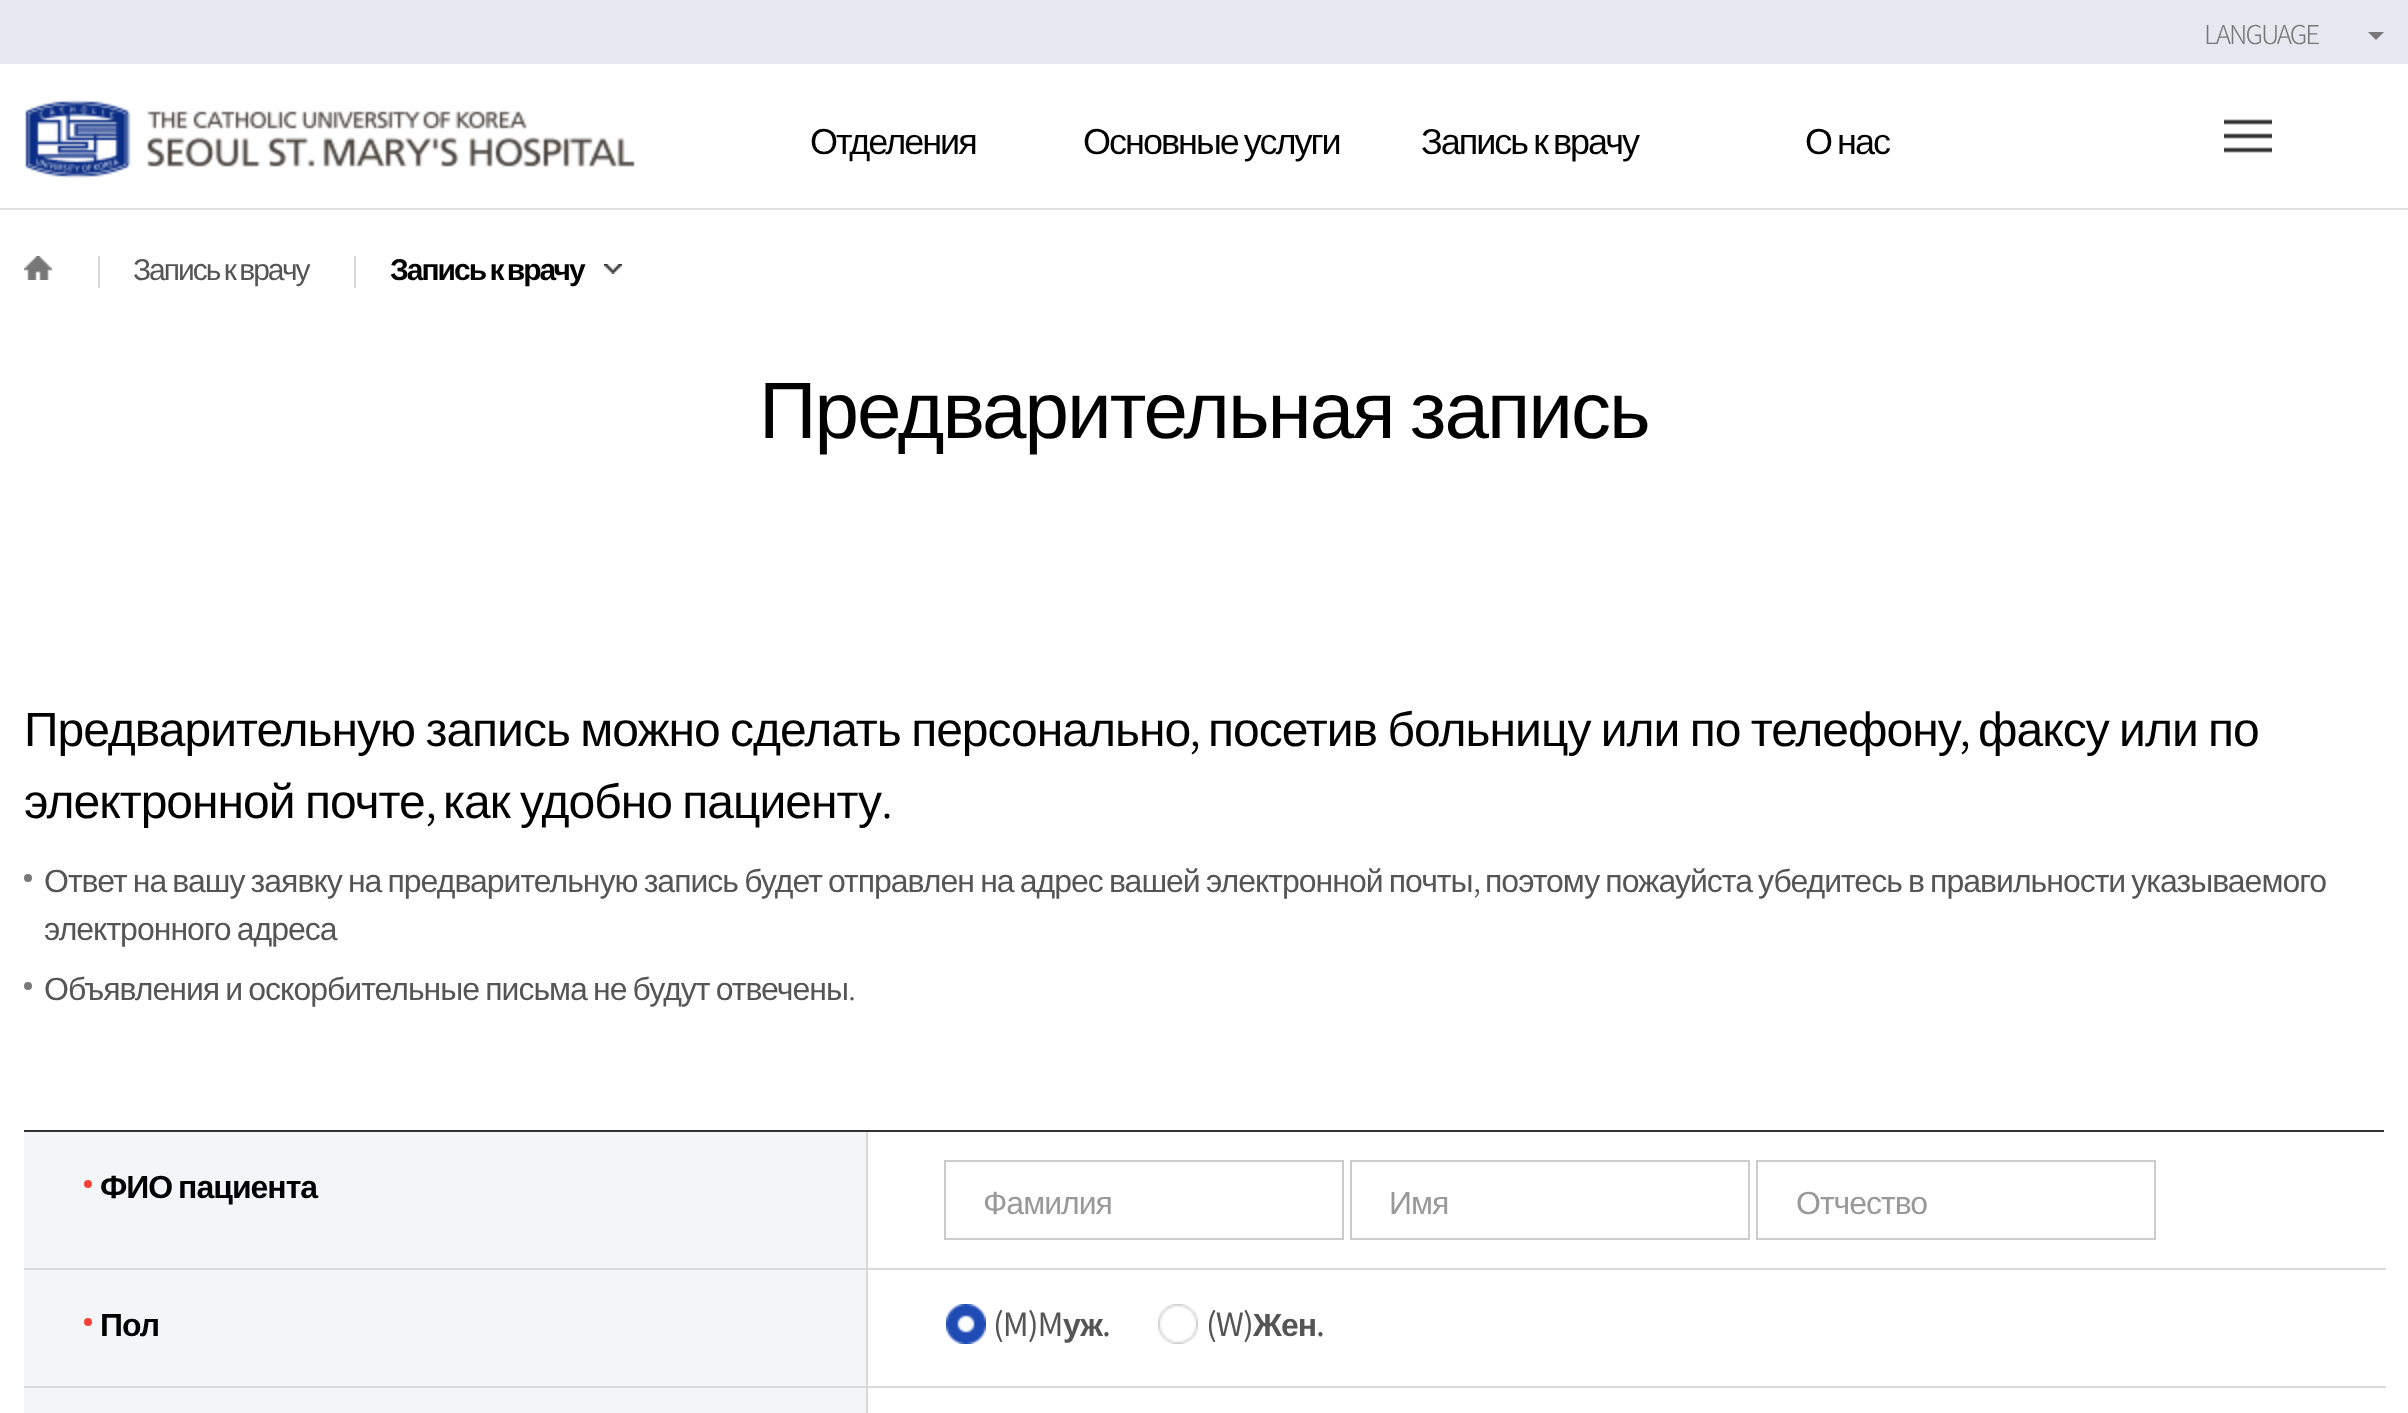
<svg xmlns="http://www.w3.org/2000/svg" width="2408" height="1413">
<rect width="100%" height="100%" fill="#fff"/>
<rect width="2408" height="64" fill="#e6e8f0"/>
<text x="2204" y="44" style="font-family:Noto Sans KR;font-size:26px;font-weight:300;letter-spacing:-2px;fill:#777">LANGUAGE</text>
<path d="M2368 32h16l-8 8z" fill="#777"/>
<image x="25" y="100" width="610" height="78" href="media/1.png"/>
<rect y="208" width="2408" height="2" fill="#e1e1e1"/>
<text x="810" y="154" style="font-family:Liberation Sans;font-size:36px;letter-spacing:-2px;fill:#000">Отделения</text>
<text x="1083" y="154" word-spacing="-2" style="font-family:Liberation Sans;font-size:36px;letter-spacing:-2px;fill:#000">Основные услуги</text>
<text x="1421" y="154" word-spacing="-2" style="font-family:Liberation Sans;font-size:36px;letter-spacing:-2px;fill:#000">Запись к врачу</text>
<text x="1805" y="154" word-spacing="-2" style="font-family:Liberation Sans;font-size:36px;letter-spacing:-2px;fill:#000">О нас</text>
<image x="2224" y="119" width="48" height="34" href="media/2.png"/>
<image x="24" y="256" width="28" height="24" href="media/3.png"/>
<rect x="98" y="256" width="2" height="32" fill="#d9d9d9"/>
<text x="133" y="280" word-spacing="-2" style="font-family:Liberation Sans;font-size:30px;letter-spacing:-2px;fill:#555">Запись к врачу</text>
<rect x="354" y="256" width="2" height="32" fill="#d9d9d9"/>
<text x="390" y="280" word-spacing="-2" style="font-family:Liberation Sans;font-size:30px;font-weight:bold;letter-spacing:-2px;fill:#000">Запись к врачу</text>
<image x="604" y="264" width="18" height="10" href="media/4.png"/>
<text x="759" y="438" word-spacing="-4" style="font-family:Liberation Sans;font-size:80px;letter-spacing:-2px;fill:#000">Предварительная запись</text>
<text x="24" y="746" word-spacing="-2" style="font-family:Liberation Sans;font-size:48px;letter-spacing:-1px;fill:#000">Предварительную запись можно сделать персонально</text>
<text x="1189" y="746" style="font-family:Noto Sans KR;font-size:48px;font-weight:300;letter-spacing:-1px;fill:#000">,</text>
<text x="1208" y="746" word-spacing="-2" style="font-family:Liberation Sans;font-size:48px;letter-spacing:-1px;fill:#000">посетив больницу или по телефону</text>
<text x="1959" y="746" style="font-family:Noto Sans KR;font-size:48px;font-weight:300;letter-spacing:-1px;fill:#000">,</text>
<text x="1978" y="746" word-spacing="-2" style="font-family:Liberation Sans;font-size:48px;letter-spacing:-1px;fill:#000">факсу или по</text>
<text x="24" y="818" word-spacing="-2" style="font-family:Liberation Sans;font-size:48px;letter-spacing:-1px;fill:#000">электронной почте</text>
<text x="425" y="818" style="font-family:Noto Sans KR;font-size:48px;font-weight:300;letter-spacing:-1px;fill:#000">,</text>
<text x="443" y="818" word-spacing="-2" style="font-family:Liberation Sans;font-size:48px;letter-spacing:-1px;fill:#000">как удобно пациенту</text>
<text x="881" y="818" style="font-family:Noto Sans KR;font-size:48px;font-weight:300;letter-spacing:-1px;fill:#000">.</text>
<circle cx="28" cy="878" r="4" fill="#777"/>
<text x="44" y="892" word-spacing="-1.75" style="font-family:Liberation Sans;font-size:32px;letter-spacing:-1px;fill:#555">Ответ на вашу заявку на предварительную запись будет отправлен на адрес вашей электронной почты</text>
<text x="1485" y="892" word-spacing="-1.75" style="font-family:Liberation Sans;font-size:32px;letter-spacing:-1px;fill:#555">поэтому пожауйста убедитесь в правильности указываемого</text>
<text x="1473" y="892" style="font-family:Noto Sans KR;font-size:32px;font-weight:300;letter-spacing:-1px;fill:#555">,</text>
<text x="44" y="940" word-spacing="-1.75" style="font-family:Liberation Sans;font-size:32px;letter-spacing:-1px;fill:#555">электронного адреса</text>
<circle cx="28" cy="986" r="4" fill="#777"/>
<text x="44" y="1000" word-spacing="-1.75" style="font-family:Liberation Sans;font-size:32px;letter-spacing:-1px;fill:#555">Объявления и оскорбительные письма не будут отвечены</text>
<text x="848" y="1000" style="font-family:Noto Sans KR;font-size:32px;font-weight:300;letter-spacing:-1px;fill:#555">.</text>
<rect x="24" y="1130" width="2360" height="2" fill="#333"/>
<rect x="24" y="1132" width="842" height="136" fill="#f4f5f8"/>
<rect x="866" y="1386" width="2" height="27" fill="#d9d9d9"/>
<rect x="866" y="1386" width="1520" height="2" fill="#d9d9d9"/>
<rect x="866" y="1268" width="2" height="120" fill="#d9d9d9"/>
<rect x="866" y="1268" width="1520" height="2" fill="#d9d9d9"/>
<rect x="866" y="1132" width="2" height="138" fill="#d9d9d9"/>
<rect x="24" y="1268" width="844" height="2" fill="#d9d9d9"/>
<circle cx="88" cy="1184" r="4" fill="#f44236"/>
<text x="100" y="1198" word-spacing="-2" style="font-family:Liberation Sans;font-size:32px;font-weight:bold;letter-spacing:-1px;fill:#000">ФИО пациента</text>
<rect x="945" y="1161" width="398" height="78" fill="none" stroke="#ccc" stroke-width="2"/>
<text x="983" y="1214" style="font-family:Liberation Sans;font-size:32px;letter-spacing:-1px;fill:#999">Фамилия</text>
<rect x="1351" y="1161" width="398" height="78" fill="none" stroke="#ccc" stroke-width="2"/>
<text x="1389" y="1214" style="font-family:Liberation Sans;font-size:32px;letter-spacing:-1px;fill:#999">Имя</text>
<rect x="1757" y="1161" width="398" height="78" fill="none" stroke="#ccc" stroke-width="2"/>
<text x="1796" y="1214" style="font-family:Liberation Sans;font-size:32px;letter-spacing:-1px;fill:#999">Отчество</text>
<rect x="24" y="1270" width="842" height="116" fill="#f4f5f8"/>
<rect x="24" y="1386" width="844" height="2" fill="#d9d9d9"/>
<circle cx="88" cy="1322" r="4" fill="#f44236"/>
<text x="100" y="1336" style="font-family:Liberation Sans;font-size:32px;font-weight:bold;letter-spacing:-1px;fill:#000">Пол</text>
<image x="946" y="1304" width="40" height="40" href="media/5.png"/>
<text x="993" y="1336" style="font-family:Noto Sans KR;font-size:32px;letter-spacing:-1px;fill:#555">(M)M</text>
<text x="1063" y="1336" style="font-family:Liberation Sans;font-size:32px;font-weight:bold;letter-spacing:-1px;fill:#555">уж</text>
<text x="1102" y="1336" style="font-family:Noto Sans KR;font-size:32px;letter-spacing:-1px;fill:#555">.</text>
<image x="1158" y="1304" width="40" height="40" href="media/6.png"/>
<text x="1206" y="1336" style="font-family:Noto Sans KR;font-size:32px;letter-spacing:-1px;fill:#555">(W)</text>
<text x="1253" y="1336" style="font-family:Liberation Sans;font-size:32px;font-weight:bold;letter-spacing:-1px;fill:#555">Жен</text>
<text x="1316" y="1336" style="font-family:Noto Sans KR;font-size:32px;letter-spacing:-1px;fill:#555">.</text>
<rect x="24" y="1388" width="842" height="25" fill="#f4f5f8"/>
</svg>
